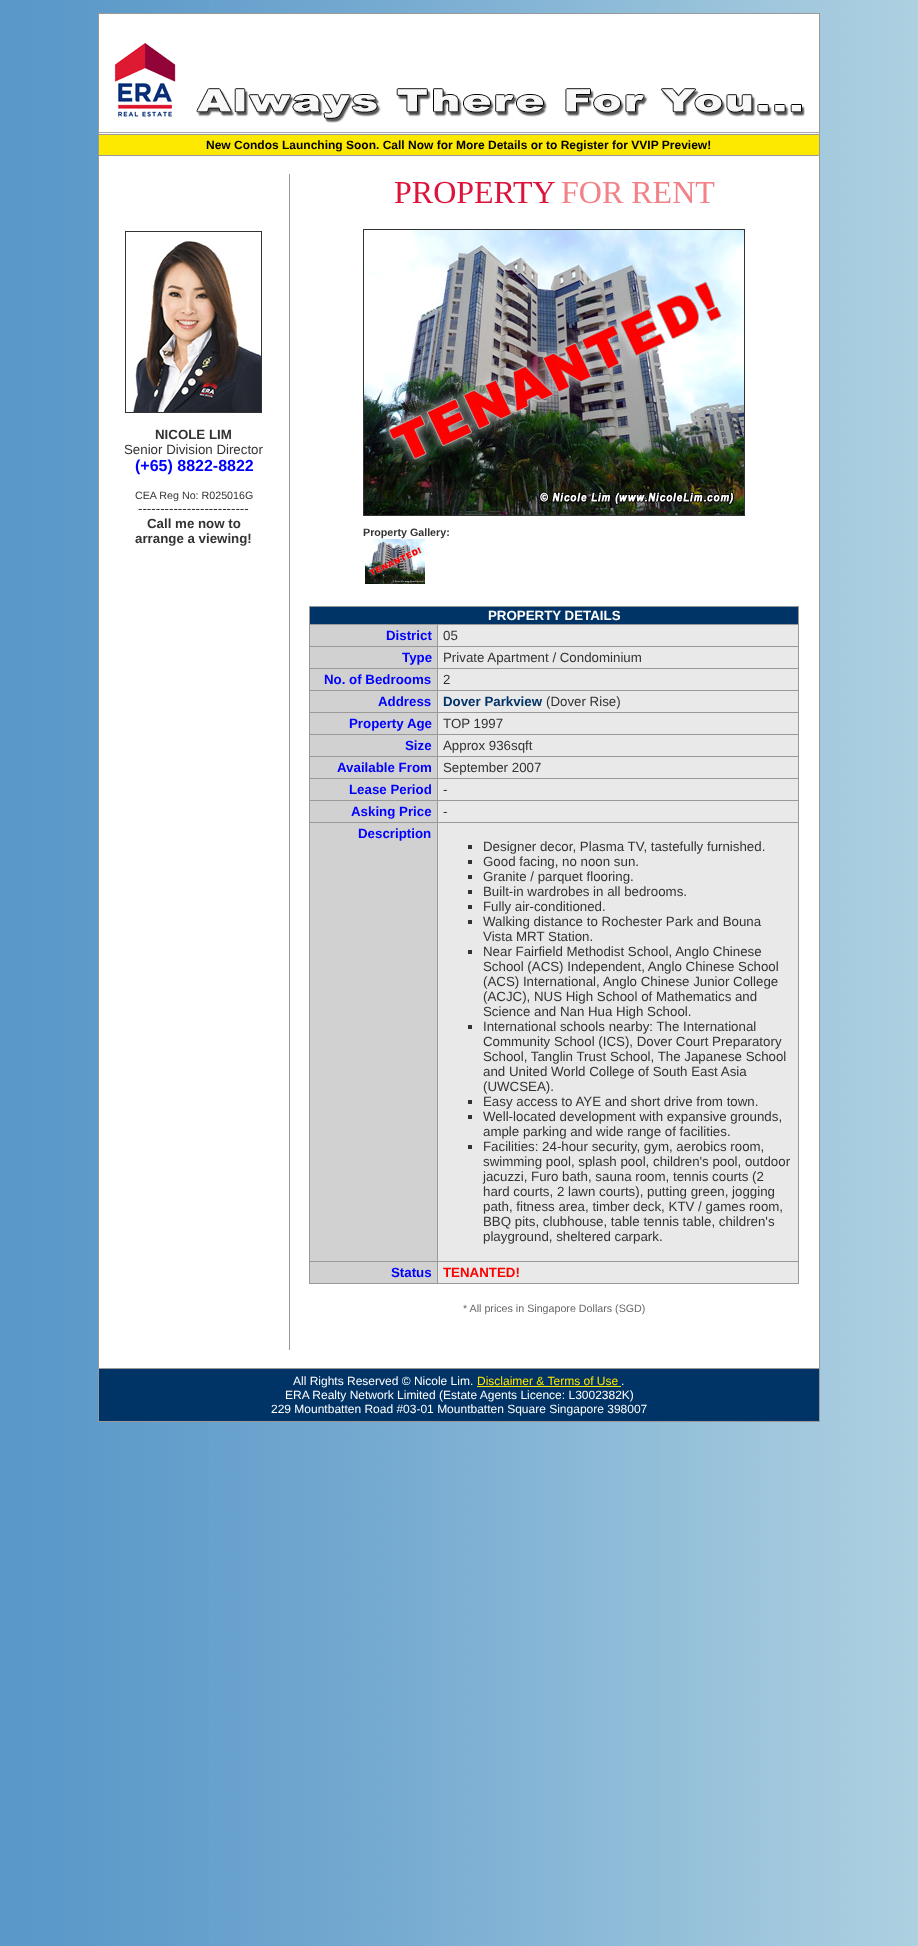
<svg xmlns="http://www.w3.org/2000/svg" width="918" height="1946">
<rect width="100%" height="100%" fill="#fff"/>
<image x="0" y="0" width="918" height="1946" href="media/1.png"/>
<rect x="99" y="14" width="720" height="1354" fill="#fff"/>
<rect x="98.5" y="13.5" width="721" height="1408" fill="none" stroke="#999"/>
<image x="805" y="22" width="14" height="112" href="media/2.png"/>
<rect x="99" y="134" width="720" height="1" fill="#999"/>
<image x="99" y="22" width="706" height="112" href="media/3.png"/>
<rect x="99" y="155" width="720" height="1" fill="#999"/>
<rect x="99" y="135" width="720" height="20" fill="#fde800"/>
<text x="206" y="149" style="font-family:Liberation Sans;font-size:12px;font-weight:bold;fill:#000">New Condos Launching Soon. Call Now for More Details or to Register for VVIP Preview!</text>
<rect x="289" y="174" width="1" height="1176" fill="#999"/>
<rect x="125.5" y="231.5" width="136" height="181" fill="none" stroke="#333"/>
<image x="133" y="240" width="128" height="172" href="media/4.png"/>
<text x="155" y="439" style="font-family:Liberation Sans;font-size:13.3px;font-weight:bold;fill:#333">NICOLE LIM</text>
<text x="124" y="454" style="font-family:Liberation Sans;font-size:13.3px;fill:#333">Senior Division Director</text>
<text x="135" y="471" style="font-family:Liberation Sans;font-size:16px;font-weight:bold;fill:#00f">(+65) 8822-8822</text>
<text x="135" y="499" style="font-family:Liberation Sans;font-size:10.7px;fill:#333">CEA Reg No: R025016G</text>
<text x="138" y="513" style="font-family:Liberation Sans;font-size:13.3px;fill:#333">-------------------------</text>
<text x="147" y="528" style="font-family:Liberation Sans;font-size:13.3px;font-weight:bold;fill:#333">Call me now to</text>
<text x="135" y="543" style="font-family:Liberation Sans;font-size:13.3px;font-weight:bold;fill:#333">arrange a viewing!</text>
<text x="394" y="203" style="font-family:Liberation Serif;font-size:32px;fill:#dc143c">PROPERTY</text>
<text x="561" y="203" style="font-family:Liberation Serif;font-size:32px;fill:#f28288">FOR RENT</text>
<rect x="363.5" y="229.5" width="381" height="286" fill="none" stroke="#333"/>
<image x="364" y="230" width="380" height="285" href="media/5.png"/>
<text x="363" y="536" style="font-family:Liberation Sans;font-size:10.7px;font-weight:bold;fill:#333">Property Gallery:</text>
<image x="365" y="539" width="60" height="45" href="media/6.png"/>
<rect x="309" y="606" width="490" height="1" fill="#999"/>
<rect x="798" y="606" width="1" height="678" fill="#999"/>
<rect x="309" y="1283" width="490" height="1" fill="#999"/>
<rect x="309" y="606" width="1" height="678" fill="#999"/>
<rect x="310" y="607" width="488" height="17" fill="#036"/>
<rect x="309" y="624" width="490" height="1" fill="#999"/>
<text x="488" y="620" style="font-family:Liberation Sans;font-size:13.3px;font-weight:bold;fill:#fff">PROPERTY DETAILS</text>
<rect x="310" y="625" width="127" height="21" fill="#d1d1d1"/>
<text x="386" y="640" style="font-family:Liberation Sans;font-size:13.3px;font-weight:bold;fill:#00f">District</text>
<rect x="438" y="625" width="360" height="21" fill="#e9e9e9"/>
<rect x="437" y="646" width="362" height="1" fill="#999"/>
<rect x="437" y="668" width="362" height="1" fill="#999"/>
<rect x="437" y="690" width="362" height="1" fill="#999"/>
<rect x="437" y="712" width="362" height="1" fill="#999"/>
<rect x="437" y="734" width="362" height="1" fill="#999"/>
<rect x="437" y="756" width="362" height="1" fill="#999"/>
<rect x="437" y="778" width="362" height="1" fill="#999"/>
<rect x="437" y="800" width="362" height="1" fill="#999"/>
<rect x="437" y="822" width="362" height="1" fill="#999"/>
<rect x="437" y="1261" width="362" height="1" fill="#999"/>
<rect x="437" y="1261" width="1" height="23" fill="#999"/>
<rect x="309" y="1261" width="129" height="1" fill="#999"/>
<rect x="437" y="822" width="1" height="440" fill="#999"/>
<rect x="309" y="822" width="129" height="1" fill="#999"/>
<rect x="437" y="800" width="1" height="23" fill="#999"/>
<rect x="309" y="800" width="129" height="1" fill="#999"/>
<rect x="437" y="778" width="1" height="23" fill="#999"/>
<rect x="309" y="778" width="129" height="1" fill="#999"/>
<rect x="437" y="756" width="1" height="23" fill="#999"/>
<rect x="309" y="756" width="129" height="1" fill="#999"/>
<rect x="437" y="734" width="1" height="23" fill="#999"/>
<rect x="309" y="734" width="129" height="1" fill="#999"/>
<rect x="437" y="712" width="1" height="23" fill="#999"/>
<rect x="309" y="712" width="129" height="1" fill="#999"/>
<rect x="437" y="690" width="1" height="23" fill="#999"/>
<rect x="309" y="690" width="129" height="1" fill="#999"/>
<rect x="437" y="668" width="1" height="23" fill="#999"/>
<rect x="309" y="668" width="129" height="1" fill="#999"/>
<rect x="437" y="646" width="1" height="23" fill="#999"/>
<rect x="309" y="646" width="129" height="1" fill="#999"/>
<rect x="437" y="624" width="1" height="23" fill="#999"/>
<text x="443" y="640" style="font-family:Liberation Sans;font-size:13.3px;fill:#333">05</text>
<rect x="310" y="647" width="127" height="21" fill="#d1d1d1"/>
<text x="402" y="662" style="font-family:Liberation Sans;font-size:13.3px;font-weight:bold;fill:#00f">Type</text>
<rect x="438" y="647" width="360" height="21" fill="#e9e9e9"/>
<text x="443" y="662" style="font-family:Liberation Sans;font-size:13.3px;fill:#333">Private Apartment / Condominium</text>
<rect x="310" y="669" width="127" height="21" fill="#d1d1d1"/>
<text x="324" y="684" style="font-family:Liberation Sans;font-size:13.3px;font-weight:bold;fill:#00f">No. of Bedrooms</text>
<rect x="438" y="669" width="360" height="21" fill="#e9e9e9"/>
<text x="443" y="684" style="font-family:Liberation Sans;font-size:13.3px;fill:#333">2</text>
<rect x="310" y="691" width="127" height="21" fill="#d1d1d1"/>
<text x="378" y="706" style="font-family:Liberation Sans;font-size:13.3px;font-weight:bold;fill:#00f">Address</text>
<rect x="438" y="691" width="360" height="21" fill="#e9e9e9"/>
<text x="443" y="706" style="font-family:Liberation Sans;font-size:13.3px;font-weight:bold;fill:#036">Dover Parkview</text>
<text x="546" y="706" style="font-family:Liberation Sans;font-size:13.3px;fill:#333">(Dover Rise)</text>
<rect x="310" y="713" width="127" height="21" fill="#d1d1d1"/>
<text x="349" y="728" style="font-family:Liberation Sans;font-size:13.3px;font-weight:bold;fill:#00f">Property Age</text>
<rect x="438" y="713" width="360" height="21" fill="#e9e9e9"/>
<text x="443" y="728" style="font-family:Liberation Sans;font-size:13.3px;fill:#333">TOP 1997</text>
<rect x="310" y="735" width="127" height="21" fill="#d1d1d1"/>
<text x="405" y="750" style="font-family:Liberation Sans;font-size:13.3px;font-weight:bold;fill:#00f">Size</text>
<rect x="438" y="735" width="360" height="21" fill="#e9e9e9"/>
<text x="443" y="750" style="font-family:Liberation Sans;font-size:13.3px;fill:#333">Approx 936sqft</text>
<rect x="310" y="757" width="127" height="21" fill="#d1d1d1"/>
<text x="337" y="772" style="font-family:Liberation Sans;font-size:13.3px;font-weight:bold;fill:#00f">Available From</text>
<rect x="438" y="757" width="360" height="21" fill="#e9e9e9"/>
<text x="443" y="772" style="font-family:Liberation Sans;font-size:13.3px;fill:#333">September 2007</text>
<rect x="310" y="779" width="127" height="21" fill="#d1d1d1"/>
<text x="349" y="794" style="font-family:Liberation Sans;font-size:13.3px;font-weight:bold;fill:#00f">Lease Period</text>
<rect x="438" y="779" width="360" height="21" fill="#e9e9e9"/>
<text x="443" y="794" style="font-family:Liberation Sans;font-size:13.3px;fill:#333">-</text>
<rect x="310" y="801" width="127" height="21" fill="#d1d1d1"/>
<text x="351" y="816" style="font-family:Liberation Sans;font-size:13.3px;font-weight:bold;fill:#00f">Asking Price</text>
<rect x="438" y="801" width="360" height="21" fill="#e9e9e9"/>
<text x="443" y="816" style="font-family:Liberation Sans;font-size:13.3px;fill:#333">-</text>
<rect x="310" y="823" width="127" height="438" fill="#d1d1d1"/>
<text x="358" y="838" style="font-family:Liberation Sans;font-size:13.3px;font-weight:bold;fill:#00f">Description</text>
<rect x="438" y="823" width="360" height="438" fill="#e9e9e9"/>
<rect x="468" y="845" width="4" height="4" fill="#333"/>
<text x="483" y="851" style="font-family:Liberation Sans;font-size:13.3px;fill:#333">Designer decor, Plasma TV, tastefully furnished.</text>
<rect x="468" y="860" width="4" height="4" fill="#333"/>
<text x="483" y="866" style="font-family:Liberation Sans;font-size:13.3px;fill:#333">Good facing, no noon sun.</text>
<rect x="468" y="875" width="4" height="4" fill="#333"/>
<text x="483" y="881" style="font-family:Liberation Sans;font-size:13.3px;fill:#333">Granite / parquet flooring.</text>
<rect x="468" y="890" width="4" height="4" fill="#333"/>
<text x="483" y="896" style="font-family:Liberation Sans;font-size:13.3px;fill:#333">Built-in wardrobes in all bedrooms.</text>
<rect x="468" y="905" width="4" height="4" fill="#333"/>
<text x="483" y="911" style="font-family:Liberation Sans;font-size:13.3px;fill:#333">Fully air-conditioned.</text>
<rect x="468" y="920" width="4" height="4" fill="#333"/>
<text x="483" y="926" style="font-family:Liberation Sans;font-size:13.3px;fill:#333">Walking distance to Rochester Park and Bouna</text>
<text x="483" y="941" style="font-family:Liberation Sans;font-size:13.3px;fill:#333">Vista MRT Station.</text>
<rect x="468" y="950" width="4" height="4" fill="#333"/>
<text x="483" y="956" style="font-family:Liberation Sans;font-size:13.3px;fill:#333">Near Fairfield Methodist School, Anglo Chinese</text>
<text x="483" y="971" style="font-family:Liberation Sans;font-size:13.3px;fill:#333">School (ACS) Independent, Anglo Chinese School</text>
<text x="483" y="986" style="font-family:Liberation Sans;font-size:13.3px;fill:#333">(ACS) International,</text>
<text x="603" y="986" style="font-family:Liberation Sans;font-size:13.3px;fill:#333">Anglo Chinese Junior College</text>
<text x="483" y="1001" style="font-family:Liberation Sans;font-size:13.3px;fill:#333">(ACJC), NUS High School of Mathematics and</text>
<text x="483" y="1016" style="font-family:Liberation Sans;font-size:13.3px;fill:#333">Science and Nan Hua High School.</text>
<rect x="468" y="1025" width="4" height="4" fill="#333"/>
<text x="483" y="1031" style="font-family:Liberation Sans;font-size:13.3px;fill:#333">International schools nearby: The International</text>
<text x="483" y="1046" style="font-family:Liberation Sans;font-size:13.3px;fill:#333">Community School (ICS), Dover Court Preparatory</text>
<text x="483" y="1061" style="font-family:Liberation Sans;font-size:13.3px;fill:#333">School, Tanglin Trust School, The Japanese School</text>
<text x="483" y="1076" style="font-family:Liberation Sans;font-size:13.3px;fill:#333">and United World College of South East Asia</text>
<text x="483" y="1091" style="font-family:Liberation Sans;font-size:13.3px;fill:#333">(UWCSEA).</text>
<rect x="468" y="1100" width="4" height="4" fill="#333"/>
<text x="483" y="1106" style="font-family:Liberation Sans;font-size:13.3px;fill:#333">Easy access to AYE and short drive from town.</text>
<rect x="468" y="1115" width="4" height="4" fill="#333"/>
<text x="483" y="1121" style="font-family:Liberation Sans;font-size:13.3px;fill:#333">Well-located development with expansive grounds,</text>
<text x="483" y="1136" style="font-family:Liberation Sans;font-size:13.3px;fill:#333">ample parking and wide range of facilities.</text>
<rect x="468" y="1145" width="4" height="4" fill="#333"/>
<text x="483" y="1151" style="font-family:Liberation Sans;font-size:13.3px;fill:#333">Facilities: 24-hour security, gym, aerobics room,</text>
<text x="483" y="1166" style="font-family:Liberation Sans;font-size:13.3px;fill:#333">swimming pool, splash pool, children's pool, outdoor</text>
<text x="483" y="1181" style="font-family:Liberation Sans;font-size:13.3px;fill:#333">jacuzzi, Furo bath, sauna room, tennis courts (2</text>
<text x="483" y="1196" style="font-family:Liberation Sans;font-size:13.3px;fill:#333">hard courts, 2 lawn courts), putting green, jogging</text>
<text x="483" y="1211" style="font-family:Liberation Sans;font-size:13.3px;fill:#333">path, fitness area, timber deck, KTV / games room,</text>
<text x="483" y="1226" style="font-family:Liberation Sans;font-size:13.3px;fill:#333">BBQ pits, clubhouse, table tennis table, children's</text>
<text x="483" y="1241" style="font-family:Liberation Sans;font-size:13.3px;fill:#333">playground, sheltered carpark.</text>
<rect x="310" y="1262" width="127" height="21" fill="#d1d1d1"/>
<text x="391" y="1277" style="font-family:Liberation Sans;font-size:13.3px;font-weight:bold;fill:#00f">Status</text>
<rect x="438" y="1262" width="360" height="21" fill="#e9e9e9"/>
<text x="443" y="1277" style="font-family:Liberation Sans;font-size:13.3px;font-weight:bold;fill:#f00">TENANTED!</text>
<text x="463" y="1312" style="font-family:Liberation Sans;font-size:10.7px;fill:#666">* All prices in Singapore Dollars (SGD)</text>
<rect x="99" y="1368" width="720" height="1" fill="#999"/>
<rect x="99" y="1369" width="720" height="52" fill="#036"/>
<text x="293" y="1385" style="font-family:Liberation Sans;font-size:12px;fill:#fff">All Rights Reserved © Nicole Lim.</text>
<text x="477" y="1385" style="font-family:Liberation Sans;font-size:12px;fill:#fde800">Disclaimer &amp; Terms of Use</text>
<rect x="477" y="1386" width="144" height="1" fill="#fde800"/>
<text x="621" y="1385" style="font-family:Liberation Sans;font-size:12px;fill:#fff">.</text>
<text x="285" y="1399" style="font-family:Liberation Sans;font-size:12px;fill:#fff">ERA Realty Network Limited (Estate Agents Licence: L3002382K)</text>
<text x="271" y="1413" style="font-family:Liberation Sans;font-size:12px;fill:#fff">229 Mountbatten Road #03-01 Mountbatten Square Singapore 398007</text>
</svg>
